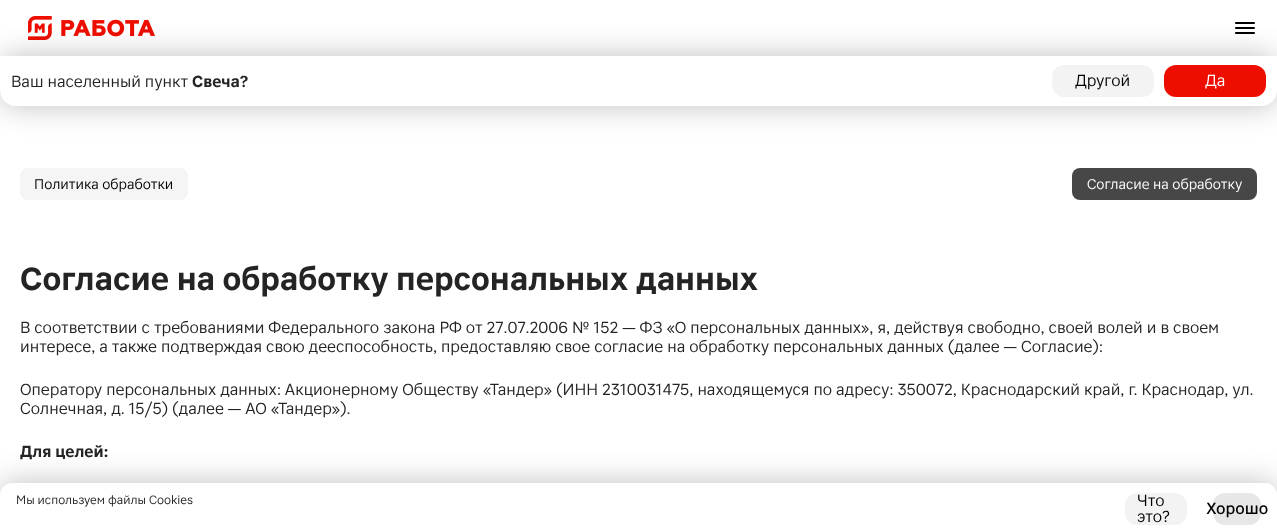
<svg xmlns="http://www.w3.org/2000/svg" width="1277" height="531">
<rect width="100%" height="100%" fill="#fff"/>
<image x="28" y="16" width="127" height="24" href="media/1.png"/>
<image x="1235" y="22" width="20" height="12" href="media/2.png"/>
<rect y="56" width="1277" height="50" rx="16" fill="#00000040" filter="blur(15px)"/>
<path d="M0 56h1277v34c0 9-7 16-16 16h-1245c-9 0-16-7-16-16z" fill="#fff"/>
<text x="11" y="87" style="font-family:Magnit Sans;font-size:16px;fill:#242424">Ваш населенный пункт</text>
<text x="192" y="87" style="font-family:Magnit Sans;font-size:16px;font-weight:bold;fill:#242424">Свеча?</text>
<rect x="1052" y="65" width="102" height="32" rx="12" fill="#f3f3f3"/>
<text x="1075" y="86" style="font-family:Magnit Sans;font-size:16px;fill:#000">Другой</text>
<rect x="1164" y="65" width="102" height="32" rx="12" fill="#ed0e00"/>
<text x="1205" y="86" style="font-family:Magnit Sans;font-size:16px;fill:#fff">Да</text>
<rect x="20" y="168" width="168" height="32" rx="8" fill="#f5f5f5"/>
<text x="34" y="189" style="font-family:Magnit Sans;font-size:14px;fill:#000">Политика обработки</text>
<rect x="1072" y="168" width="185" height="32" rx="8" fill="#474747"/>
<text x="1087" y="189" style="font-family:Magnit Sans;font-size:14px;fill:#fff">Согласие на обработку</text>
<text x="20" y="290" style="font-family:Magnit Sans;font-size:32px;font-weight:bold;fill:#242424">Согласие на обработку персональных данных</text>
<text x="20" y="333" style="font-family:Magnit Sans;font-size:16px;fill:#242424">В соответствии с требованиями Федерального закона РФ от 27.07.2006 № 152 — ФЗ «О персональных данных», я, действуя свободно, своей волей и в своем</text>
<text x="20" y="352" style="font-family:Magnit Sans;font-size:16px;fill:#242424">интересе, а также подтверждая свою дееспособность, предоставляю свое согласие на обработку персональных данных (далее — Согласие):</text>
<text x="20" y="395" style="font-family:Magnit Sans;font-size:16px;fill:#242424">Оператору персональных данных: Акционерному Обществу «Тандер» (ИНН 2310031475, находящемуся по адресу: 350072, Краснодарский край, г. Краснодар, ул.</text>
<text x="20" y="414" style="font-family:Magnit Sans;font-size:16px;fill:#242424">Солнечная, д. 15/5) (далее — АО «Тандер»).</text>
<text x="20" y="457" style="font-family:Magnit Sans;font-size:16px;font-weight:bold;fill:#242424">Для целей:</text>
<rect y="483" width="1277" height="48" rx="12" fill="#00000040" filter="blur(15px)"/>
<path d="M12 483h1253c6.5 0 12 5.5 12 12v36h-1277v-36c0-6.5 5.5-12 12-12z" fill="#fff"/>
<text x="16" y="504" style="font-family:Magnit Sans;font-size:12px;fill:#242424">Мы используем файлы Cookies</text>
<rect x="1125" y="493" width="62" height="32" rx="12" fill="#f3f3f3"/>
<text x="1137" y="506" style="font-family:Magnit Sans;font-size:16px;fill:#000">Что</text>
<text x="1137" y="522" style="font-family:Magnit Sans;font-size:16px;fill:#000">это?</text>
<rect x="1213" y="493" width="48" height="32" rx="12" fill="#e7e7e7"/>
<text x="1206" y="514" style="font-family:Magnit Sans;font-size:16px;font-weight:500;fill:#000">Хорошо</text>
</svg>
